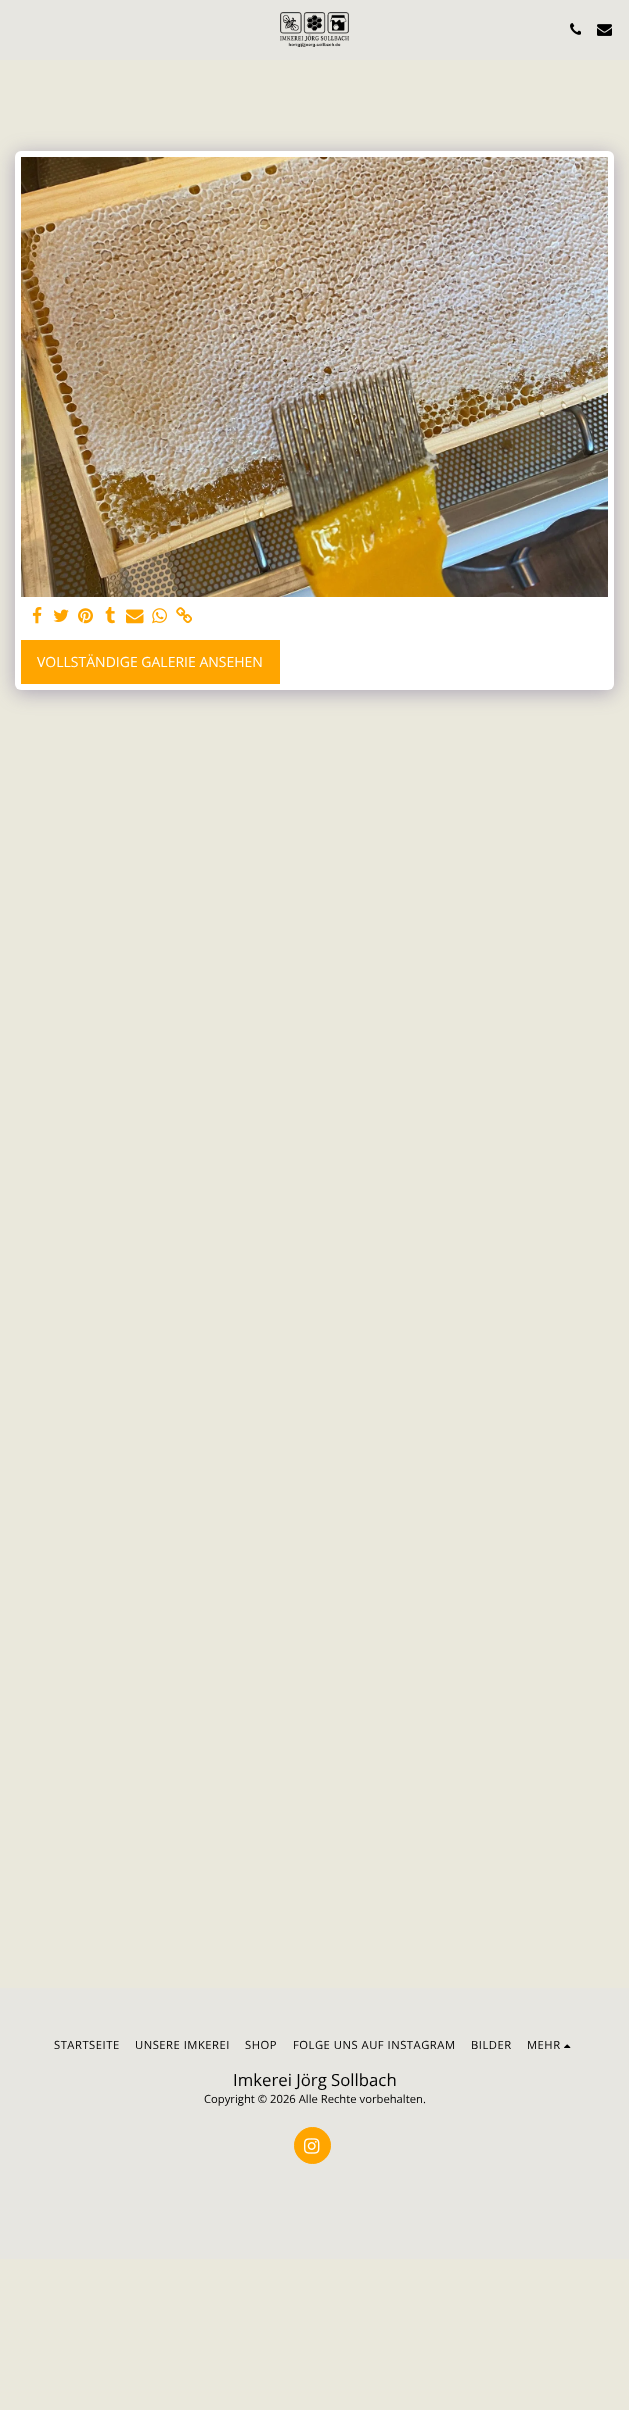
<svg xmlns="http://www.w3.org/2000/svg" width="629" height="2410">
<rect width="100%" height="100%" fill="#eae8dc"/>
<rect width="629" height="60" fill="#e7e6e1"/>
<image x="280" y="12" width="69" height="35" href="media/1.png"/>
<image x="570" y="23" width="11" height="12" href="media/2.png"/>
<image x="597" y="24" width="15" height="12" href="media/3.png"/>
<rect x="15" y="154" width="599" height="539" rx="6" fill="#4d3f7a66" filter="blur(10px)"/>
<rect x="15" y="151" width="599" height="539" rx="6" fill="#fff"/>
<image x="21" y="157" width="587" height="440" href="media/4.png"/>
<image x="32" y="607" width="10" height="17" href="media/5.png"/>
<image x="53" y="609" width="16" height="13" href="media/6.png"/>
<image x="78" y="608" width="15" height="16" href="media/7.png"/>
<image x="105" y="607" width="10" height="17" href="media/8.png"/>
<image x="126" y="609" width="18" height="15" href="media/9.png"/>
<image x="152" y="608" width="15" height="16" href="media/10.png"/>
<image x="176" y="607" width="16" height="17" href="media/11.png"/>
<rect x="21" y="640" width="259" height="44" fill="#ffa500"/>
<text x="37" y="667" style="font-family:Open Sans;font-size:14px;fill:#fff">VOLLSTÄNDIGE GALERIE ANSEHEN</text>
<rect y="1988" width="629" height="271" fill="#e7e6e1"/>
<text x="54" y="2049" style="font-family:Open Sans;font-size:11.25px;letter-spacing:0.5px;fill:#000">STARTSEITE</text>
<text x="135" y="2049" style="font-family:Open Sans;font-size:11.25px;letter-spacing:0.5px;fill:#000">UNSERE IMKEREI</text>
<text x="245" y="2049" style="font-family:Open Sans;font-size:11.25px;letter-spacing:0.5px;fill:#000">SHOP</text>
<text x="293" y="2049" style="font-family:Open Sans;font-size:11.25px;letter-spacing:0.5px;fill:#000">FOLGE UNS AUF INSTAGRAM</text>
<text x="471" y="2049" style="font-family:Open Sans;font-size:11.25px;letter-spacing:0.5px;fill:#000">BILDER</text>
<text x="527" y="2049" style="font-family:Open Sans;font-size:11.25px;letter-spacing:0.5px;fill:#000">MEHR</text>
<image x="564" y="2044" width="7" height="4" href="media/12.png"/>
<text x="233" y="2086" style="font-family:Open Sans;font-size:16.75px;fill:#000">Imkerei Jörg Sollbach</text>
<text x="204" y="2103" style="font-family:Open Sans;font-size:11.25px;fill:#000">Copyright © 2026 Alle Rechte vorbehalten.</text>
<circle cx="312.5" cy="2145.5" r="18" fill="#ffa500" stroke="#ffa500"/>
<image x="304" y="2138" width="16" height="16" href="media/13.png"/>
</svg>
